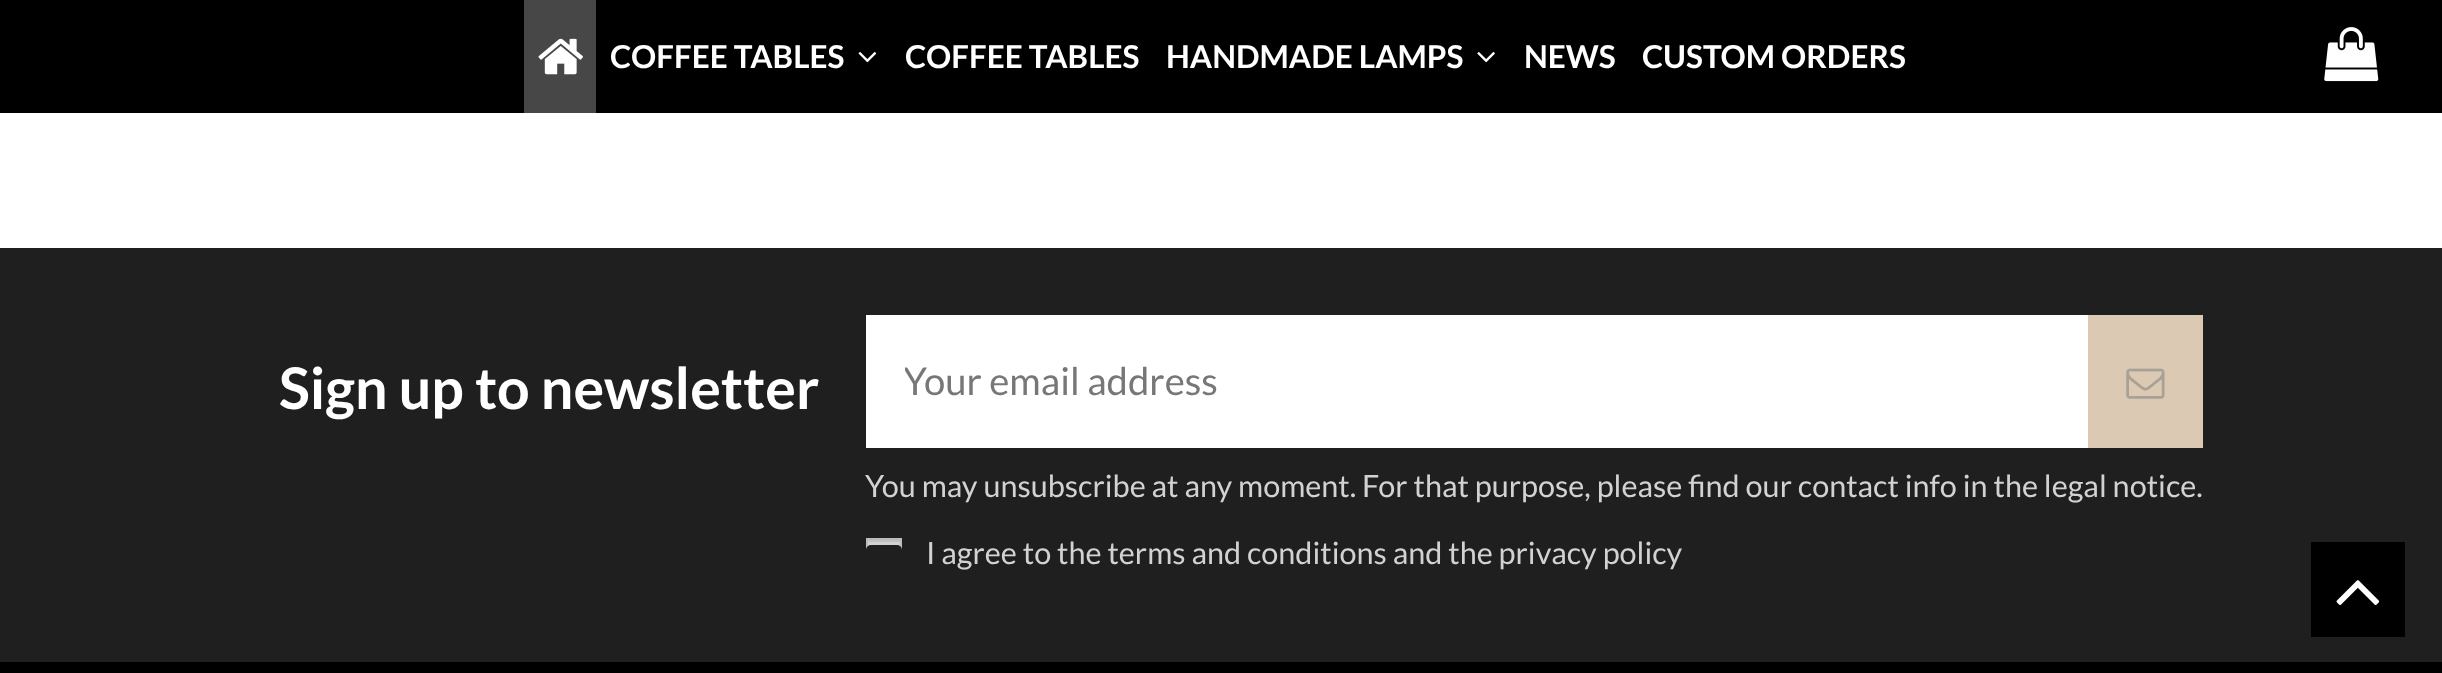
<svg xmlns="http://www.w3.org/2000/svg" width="2442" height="673">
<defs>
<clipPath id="clip1"><rect x="905" y="358" width="1145" height="47"/></clipPath>
</defs>
<rect width="100%" height="100%" fill="#fff"/>
<rect width="2442" height="113" fill="#000"/>
<rect x="524" width="72" height="113" fill="#474747"/>
<image x="538" y="38" width="45" height="37" href="media/1.png"/>
<text x="610" y="68" style="font-family:Lato;font-size:31.5px;font-weight:bold;fill:#fff">COFFEE TABLES</text>
<image x="858" y="52" width="19" height="11" href="media/2.png"/>
<text x="905" y="68" style="font-family:Lato;font-size:31.5px;font-weight:bold;fill:#fff">COFFEE TABLES</text>
<text x="1166" y="68" style="font-family:Lato;font-size:31.5px;font-weight:bold;fill:#fff">HANDMADE LAMPS</text>
<image x="1477" y="52" width="18" height="11" href="media/3.png"/>
<text x="1524" y="68" style="font-family:Lato;font-size:31.5px;font-weight:bold;fill:#fff">NEWS</text>
<text x="1642" y="68" style="font-family:Lato;font-size:31.5px;font-weight:bold;fill:#fff">CUSTOM ORDERS</text>
<image x="2324" y="27" width="55" height="55" href="media/4.png"/>
<rect y="662" width="2442" height="11" fill="#000"/>
<rect y="248" width="2442" height="414" fill="#1f1f1f"/>
<text x="279" y="409" style="font-family:Lato;font-size:57.4px;font-weight:bold;fill:#fff">Sign up to newsletter</text>
<rect x="866" y="315" width="1222" height="133" fill="#fff"/>
<g clip-path="url(#clip1)">
<text x="903" y="395" style="font-family:Lato;font-size:38.25px;fill:#777">Your email address</text>
</g>
<rect x="2088" y="315" width="115" height="133" fill="#dbc9b4"/>
<image x="2126" y="368" width="39" height="31" href="media/5.png"/>
<text x="865" y="497" style="font-family:Lato;font-size:30.6px;fill:#d2d2d2">You may unsubscribe at any moment. For that purpose, please find our contact info in the legal notice.</text>
<rect x="868" y="540" width="32" height="6" fill="#d2d2d2"/>
<rect x="869" y="540" width="31" height="2" fill="#c0c0c0"/>
<rect x="867" y="539" width="34" height="34" fill="none" stroke="#bcbcbc" stroke-width="2"/>
<text x="926" y="564" style="font-family:Lato;font-size:30.6px;fill:#d2d2d2">I agree to the terms and conditions and the privacy policy</text>
<rect x="867" y="546" width="34" height="34" rx="4" fill="#1f1f1f" stroke="#1f1f1f" stroke-width="2"/>
<rect x="2311" y="542" width="94" height="95" fill="#000"/>
<image x="2336" y="580" width="44" height="25" href="media/6.png"/>
</svg>
